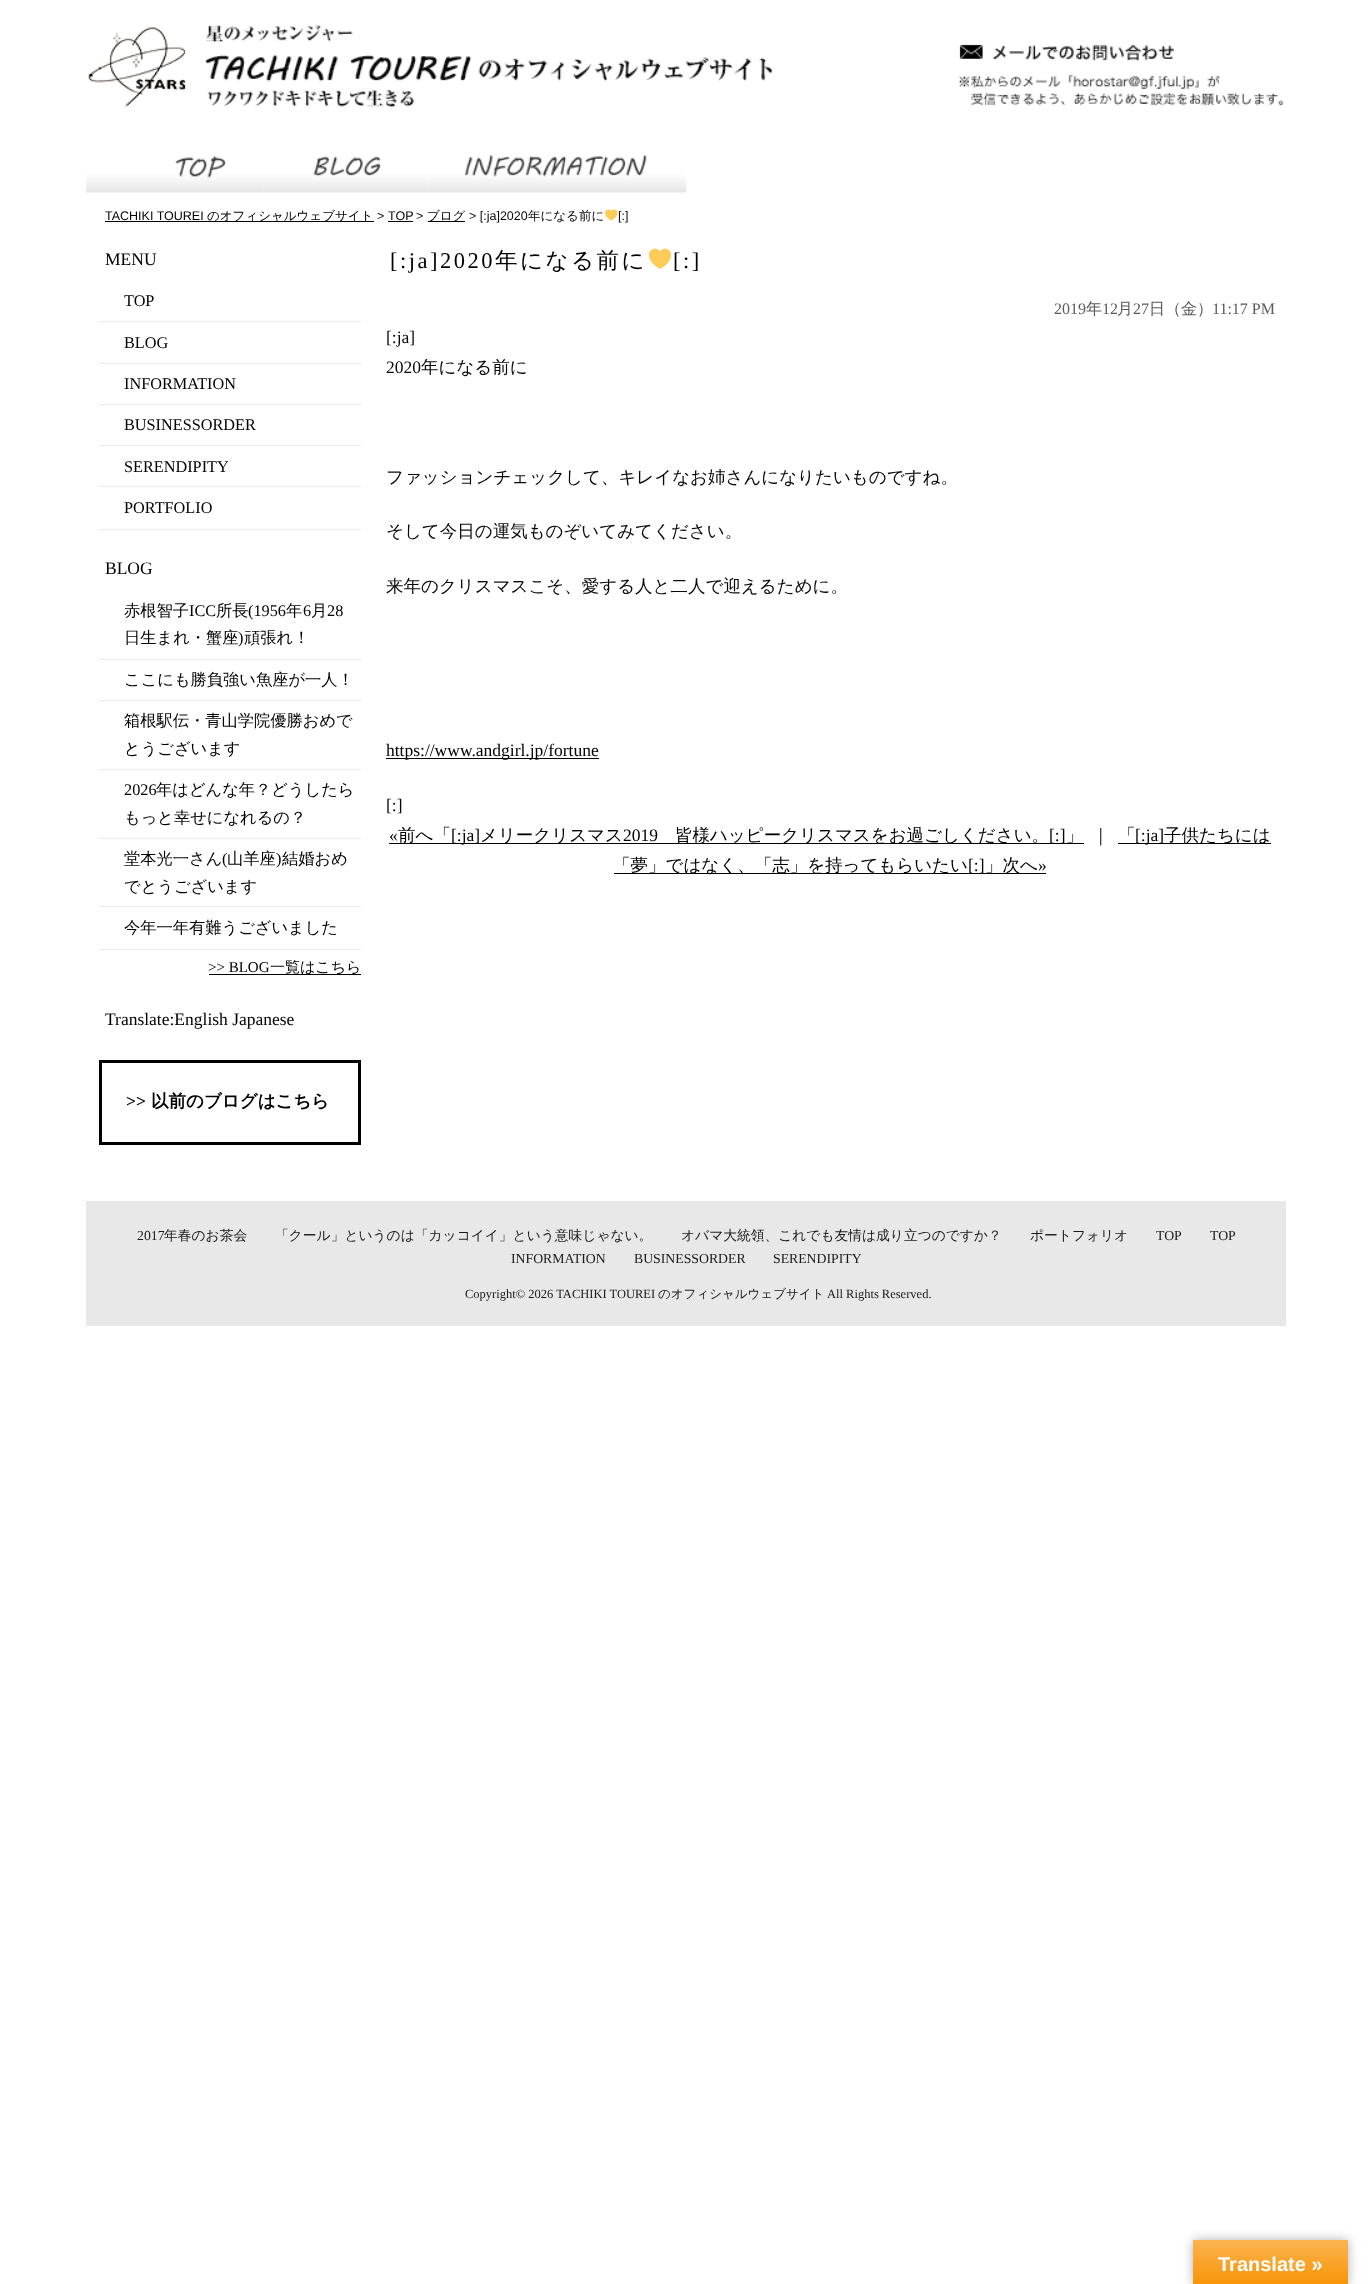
<svg xmlns="http://www.w3.org/2000/svg" width="1372" height="2284">
<defs>
<linearGradient id="g1" gradientUnits="userSpaceOnUse" x1="1270" y1="2240" x2="1270" y2="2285"><stop offset="0" stop-color="#fbb450"/><stop offset="1" stop-color="#f89406"/></linearGradient>
</defs>
<rect width="100%" height="100%" fill="#fff"/>
<image x="88" y="24" width="685" height="83" href="media/1.png"/>
<image x="958" y="44" width="326" height="62" href="media/2.png"/>
<image x="86" y="156" width="177" height="37" href="media/3.png"/>
<image x="262" y="156" width="166" height="37" href="media/4.png"/>
<image x="427" y="154" width="260" height="39" href="media/5.png"/>
<text x="105" y="220" style="font-family:Liberation Sans;font-size:12.5px;fill:#000">TACHIKI TOUREI</text>
<rect x="105" y="221" width="269" height="1" fill="#000"/>
<text x="207" y="220" style="font-family:WenQuanYi Zen Hei;font-size:12.5px;font-weight:500;fill:#000">のオフィシャルウェブサイト</text>
<text x="377" y="220" style="font-family:Liberation Sans;font-size:12.5px;fill:#080808">&gt;</text>
<text x="388" y="220" style="font-family:Liberation Sans;font-size:12.5px;fill:#000">TOP</text>
<rect x="388" y="221" width="25" height="1" fill="#000"/>
<text x="416" y="220" style="font-family:Liberation Sans;font-size:12.5px;fill:#080808">&gt;</text>
<rect x="428" y="221" width="37" height="1" fill="#000"/>
<text x="427" y="220" style="font-family:WenQuanYi Zen Hei;font-size:12.5px;font-weight:500;fill:#000">ブログ</text>
<text x="469" y="220" style="font-family:Liberation Sans;font-size:12.5px;fill:#080808">&gt; [:ja]2020</text>
<text x="528" y="220" style="font-family:WenQuanYi Zen Hei;font-size:12.5px;font-weight:500;fill:#080808">年になる前に</text>
<image x="605" y="209" width="13" height="12" href="media/6.png"/>
<text x="618" y="220" style="font-family:Liberation Sans;font-size:12.5px;fill:#080808">[:]</text>
<text x="105" y="265" style="font-family:Liberation Serif;font-size:17.5px;fill:#000">MENU</text>
<rect x="99" y="321" width="262" height="1" fill="#ececec"/>
<text x="124" y="306" style="font-family:Liberation Serif;font-size:16.25px;fill:#000">TOP</text>
<rect x="99" y="363" width="262" height="1" fill="#ececec"/>
<text x="124" y="348" style="font-family:Liberation Serif;font-size:16.25px;fill:#000">BLOG</text>
<rect x="99" y="404" width="262" height="1" fill="#ececec"/>
<text x="124" y="389" style="font-family:Liberation Serif;font-size:16.25px;fill:#000">INFORMATION</text>
<rect x="99" y="445" width="262" height="1" fill="#ececec"/>
<text x="124" y="430" style="font-family:Liberation Serif;font-size:16.25px;fill:#000">BUSINESSORDER</text>
<rect x="99" y="486" width="262" height="1" fill="#ececec"/>
<text x="124" y="472" style="font-family:Liberation Serif;font-size:16.25px;fill:#000">SERENDIPITY</text>
<rect x="99" y="529" width="262" height="1" fill="#ececec"/>
<text x="124" y="513" style="font-family:Liberation Serif;font-size:16.25px;fill:#000">PORTFOLIO</text>
<text x="105" y="574" style="font-family:Liberation Serif;font-size:17.5px;fill:#000">BLOG</text>
<rect x="99" y="659" width="262" height="1" fill="#ececec"/>
<text x="124" y="616" style="font-family:WenQuanYi Zen Hei;font-size:16.25px;font-weight:500;fill:#000">赤根智子</text>
<text x="189" y="616" style="font-family:Liberation Serif;font-size:16.25px;fill:#000">ICC</text>
<text x="216" y="616" style="font-family:WenQuanYi Zen Hei;font-size:16.25px;font-weight:500;fill:#000">所長</text>
<text x="248" y="616" style="font-family:Liberation Serif;font-size:16.25px;fill:#000">(1956</text>
<text x="286" y="616" style="font-family:WenQuanYi Zen Hei;font-size:16.25px;font-weight:500;fill:#000">年</text>
<text x="303" y="616" style="font-family:Liberation Serif;font-size:16.25px;fill:#000">6</text>
<text x="311" y="616" style="font-family:WenQuanYi Zen Hei;font-size:16.25px;font-weight:500;fill:#000">月</text>
<text x="327" y="616" style="font-family:Liberation Serif;font-size:16.25px;fill:#000">28</text>
<text x="124" y="643" style="font-family:WenQuanYi Zen Hei;font-size:16.25px;font-weight:500;fill:#000">日生まれ・蟹座</text>
<text x="238" y="643" style="font-family:Liberation Serif;font-size:16.25px;fill:#000">)</text>
<text x="244" y="643" style="font-family:WenQuanYi Zen Hei;font-size:16.25px;font-weight:500;fill:#000">頑張れ！</text>
<rect x="99" y="700" width="262" height="1" fill="#ececec"/>
<text x="124" y="685" style="font-family:WenQuanYi Zen Hei;font-size:16.25px;font-weight:500;fill:#000">ここにも勝負強い魚座が一人！</text>
<rect x="99" y="769" width="262" height="1" fill="#ececec"/>
<text x="124" y="726" style="font-family:WenQuanYi Zen Hei;font-size:16.25px;font-weight:500;fill:#000">箱根駅伝・青山学院優勝おめで</text>
<text x="124" y="754" style="font-family:WenQuanYi Zen Hei;font-size:16.25px;font-weight:500;fill:#000">とうございます</text>
<rect x="99" y="838" width="262" height="1" fill="#ececec"/>
<text x="124" y="795" style="font-family:Liberation Serif;font-size:16.25px;fill:#000">2026</text>
<text x="156" y="795" style="font-family:WenQuanYi Zen Hei;font-size:16.25px;font-weight:500;fill:#000">年はどんな年？どうしたら</text>
<text x="124" y="823" style="font-family:WenQuanYi Zen Hei;font-size:16.25px;font-weight:500;fill:#000">もっと幸せになれるの？</text>
<rect x="99" y="906" width="262" height="1" fill="#ececec"/>
<text x="124" y="864" style="font-family:WenQuanYi Zen Hei;font-size:16.25px;font-weight:500;fill:#000">堂本光一さん</text>
<text x="222" y="864" style="font-family:Liberation Serif;font-size:16.25px;fill:#000">(</text>
<text x="227" y="864" style="font-family:WenQuanYi Zen Hei;font-size:16.25px;font-weight:500;fill:#000">山羊座</text>
<text x="276" y="864" style="font-family:Liberation Serif;font-size:16.25px;fill:#000">)</text>
<text x="282" y="864" style="font-family:WenQuanYi Zen Hei;font-size:16.25px;font-weight:500;fill:#000">結婚おめ</text>
<text x="124" y="892" style="font-family:WenQuanYi Zen Hei;font-size:16.25px;font-weight:500;fill:#000">でとうございます</text>
<rect x="99" y="949" width="262" height="1" fill="#ececec"/>
<text x="124" y="933" style="font-family:WenQuanYi Zen Hei;font-size:16.25px;font-weight:500;fill:#000">今年一年有難うございました</text>
<text x="208" y="972" style="font-family:Liberation Serif;font-size:15px;fill:#000">&gt;&gt; BLOG</text>
<rect x="209" y="974" width="152" height="1" fill="#000"/>
<text x="270" y="972" style="font-family:WenQuanYi Zen Hei;font-size:15px;font-weight:500;fill:#000">一覧はこちら</text>
<text x="105" y="1025" style="font-family:Liberation Serif;font-size:17.5px;fill:#000">Translate:English Japanese</text>
<rect x="100.5" y="1061.5" width="259" height="82" fill="none" stroke="#000" stroke-width="3"/>
<text x="126" y="1107" style="font-family:Liberation Serif;font-size:17.5px;font-weight:bold;fill:#000">&gt;&gt;</text>
<text x="151" y="1107" style="font-family:WenQuanYi Zen Hei;font-size:17.5px;font-weight:bold;fill:#000">以前のブログはこちら</text>
<text x="390" y="268" style="font-family:Liberation Serif;font-size:22.5px;letter-spacing:2.5px;fill:#000">[:ja]2020</text>
<text x="495" y="268" style="font-family:WenQuanYi Zen Hei;font-size:22.5px;font-weight:500;letter-spacing:2.5px;fill:#000">年になる前に</text>
<image x="649" y="248" width="22" height="21" href="media/7.png"/>
<text x="673" y="268" style="font-family:Liberation Serif;font-size:22.5px;letter-spacing:2.5px;fill:#000">[:]</text>
<text x="1054" y="314" style="font-family:Liberation Serif;font-size:16px;fill:#5a5a5a">2019</text>
<text x="1086" y="314" style="font-family:WenQuanYi Zen Hei;font-size:16px;font-weight:500;fill:#5a5a5a">年</text>
<text x="1102" y="314" style="font-family:Liberation Serif;font-size:16px;fill:#5a5a5a">12</text>
<text x="1117" y="314" style="font-family:WenQuanYi Zen Hei;font-size:16px;font-weight:500;fill:#5a5a5a">月</text>
<text x="1133" y="314" style="font-family:Liberation Serif;font-size:16px;fill:#5a5a5a">27</text>
<text x="1149" y="314" style="font-family:WenQuanYi Zen Hei;font-size:16px;font-weight:500;fill:#5a5a5a">日（金）</text>
<text x="1212" y="314" style="font-family:Liberation Serif;font-size:16px;fill:#5a5a5a">11:17 PM</text>
<text x="386" y="343" style="font-family:Liberation Serif;font-size:17.5px;fill:#080808">[:ja]</text>
<text x="386" y="373" style="font-family:Liberation Serif;font-size:17.5px;fill:#080808">2020</text>
<text x="421" y="373" style="font-family:WenQuanYi Zen Hei;font-size:17.5px;font-weight:500;fill:#080808">年になる前に</text>
<text x="386" y="483" style="font-family:WenQuanYi Zen Hei;font-size:17.5px;font-weight:500;fill:#080808">ファッションチェックして、キレイなお姉さんになりたいものですね。</text>
<text x="386" y="537" style="font-family:WenQuanYi Zen Hei;font-size:17.5px;font-weight:500;fill:#080808">そして今日の運気ものぞいてみてください。</text>
<text x="386" y="592" style="font-family:WenQuanYi Zen Hei;font-size:17.5px;font-weight:500;fill:#080808">来年のクリスマスこそ、愛する人と二人で迎えるために。</text>
<rect x="386" y="758" width="213" height="1" fill="#000"/>
<text x="386" y="756" style="font-family:Liberation Serif;font-size:17.5px;fill:#000">https://www.andgirl.jp/fortune</text>
<text x="386" y="811" style="font-family:Liberation Serif;font-size:17.5px;fill:#080808">[:]</text>
<text x="389" y="841" style="font-family:Liberation Serif;font-size:17.5px;fill:#000">«</text>
<rect x="389" y="843" width="695" height="1" fill="#000"/>
<text x="398" y="841" style="font-family:WenQuanYi Zen Hei;font-size:17.5px;font-weight:500;fill:#000">前へ「</text>
<text x="451" y="841" style="font-family:Liberation Serif;font-size:17.5px;fill:#000">[:ja]</text>
<text x="480" y="841" style="font-family:WenQuanYi Zen Hei;font-size:17.5px;font-weight:500;fill:#000">メリークリスマス</text>
<text x="623" y="841" style="font-family:Liberation Serif;font-size:17.5px;fill:#000">2019</text>
<text x="675" y="841" style="font-family:WenQuanYi Zen Hei;font-size:17.5px;font-weight:500;fill:#000">皆様ハッピークリスマスをお過ごしください。</text>
<text x="1049" y="841" style="font-family:Liberation Serif;font-size:17.5px;fill:#000">[:]</text>
<text x="1066" y="841" style="font-family:WenQuanYi Zen Hei;font-size:17.5px;font-weight:500;fill:#000">」</text>
<text x="1092" y="841" style="font-family:WenQuanYi Zen Hei;font-size:17.5px;font-weight:500;fill:#080808">｜</text>
<text x="1118" y="841" style="font-family:WenQuanYi Zen Hei;font-size:17.5px;font-weight:500;fill:#000">「</text>
<rect x="1118" y="843" width="153" height="1" fill="#000"/>
<text x="1135" y="841" style="font-family:Liberation Serif;font-size:17.5px;fill:#000">[:ja]</text>
<text x="1164" y="841" style="font-family:WenQuanYi Zen Hei;font-size:17.5px;font-weight:500;fill:#000">子供たちには</text>
<rect x="614" y="873" width="432" height="1" fill="#000"/>
<text x="613" y="871" style="font-family:WenQuanYi Zen Hei;font-size:17.5px;font-weight:500;fill:#000">「夢」ではなく、「志」を持ってもらいたい</text>
<text x="968" y="871" style="font-family:Liberation Serif;font-size:17.5px;fill:#000">[:]</text>
<text x="985" y="871" style="font-family:WenQuanYi Zen Hei;font-size:17.5px;font-weight:500;fill:#000">」次へ</text>
<text x="1038" y="871" style="font-family:Liberation Serif;font-size:17.5px;fill:#000">»</text>
<rect x="86" y="1201" width="1200" height="125" fill="#e8e8e8"/>
<text x="137" y="1240" style="font-family:Liberation Serif;font-size:13.75px;fill:#191919">2017</text>
<text x="164" y="1240" style="font-family:WenQuanYi Zen Hei;font-size:13.75px;font-weight:500;fill:#191919">年春のお茶会</text>
<text x="275" y="1240" style="font-family:WenQuanYi Zen Hei;font-size:13.75px;font-weight:500;fill:#191919">「クール」というのは「カッコイイ」という意味じゃない。</text>
<text x="681" y="1240" style="font-family:WenQuanYi Zen Hei;font-size:13.75px;font-weight:500;fill:#191919">オバマ大統領、これでも友情は成り立つのですか？</text>
<text x="1030" y="1240" style="font-family:WenQuanYi Zen Hei;font-size:13.75px;font-weight:500;fill:#191919">ポートフォリオ</text>
<text x="1156" y="1240" style="font-family:Liberation Serif;font-size:13.75px;fill:#191919">TOP</text>
<text x="1210" y="1240" style="font-family:Liberation Serif;font-size:13.75px;fill:#191919">TOP</text>
<text x="511" y="1263" style="font-family:Liberation Serif;font-size:13.75px;fill:#191919">INFORMATION</text>
<text x="634" y="1263" style="font-family:Liberation Serif;font-size:13.75px;fill:#191919">BUSINESSORDER</text>
<text x="773" y="1263" style="font-family:Liberation Serif;font-size:13.75px;fill:#191919">SERENDIPITY</text>
<text x="465" y="1298" style="font-family:Liberation Serif;font-size:12.5px;fill:#191919">Copyright© 2026 TACHIKI TOUREI</text>
<text x="658" y="1298" style="font-family:WenQuanYi Zen Hei;font-size:12.5px;font-weight:500;fill:#191919">のオフィシャルウェブサイト</text>
<text x="827" y="1298" style="font-family:Liberation Serif;font-size:12.5px;fill:#191919">All Rights Reserved.</text>
<rect x="1193" y="2240" width="155" height="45" fill="#0000004d" filter="blur(5.5px)"/>
<rect x="1193" y="2240" width="155" height="44" fill="url(#g1)"/>
<text x="1218" y="2271" style="font-family:Liberation Sans;font-size:20px;font-weight:bold;fill:#fff">Translate »</text>
</svg>
